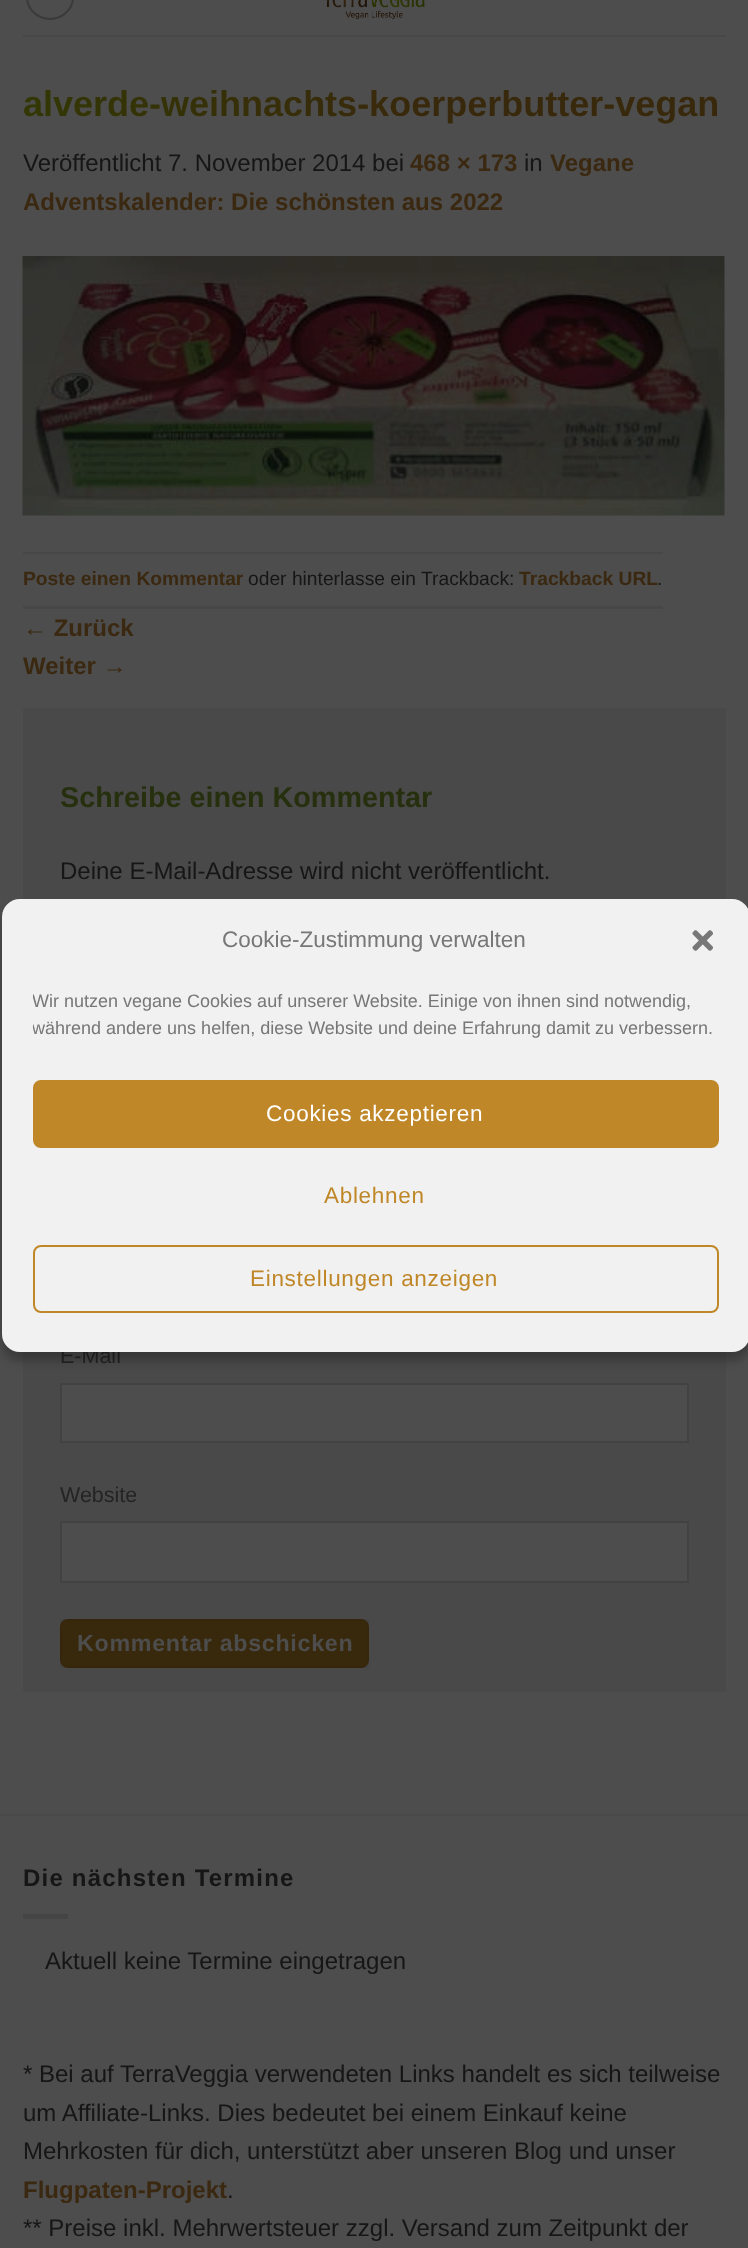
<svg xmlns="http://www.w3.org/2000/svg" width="748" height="2248">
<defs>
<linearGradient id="g1" gradientUnits="userSpaceOnUse" x1="23" y1="103" x2="726" y2="103"><stop offset="0" stop-color="#323704"/><stop offset="0.55" stop-color="#39290c"/></linearGradient>
<clipPath id="clip1"><path d="M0 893h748v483h-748zm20 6h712c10 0 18 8 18 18v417c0 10-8 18-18 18h-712c-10 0-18-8-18-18v-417c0-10 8-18 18-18z" clip-rule="evenodd"/></clipPath>
<clipPath id="clip2"><rect x="33" y="989" width="686" height="61"/></clipPath>
</defs>
<rect width="100%" height="100%" fill="#4d4d4d"/>
<rect x="27" y="-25" width="46" height="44" rx="23" fill="none" stroke="#3a3a3a" stroke-width="2"/>
<image x="326" y="0" width="99" height="19" href="media/1.png"/>
<rect x="23" y="35" width="703" height="2" fill="#474747"/>
<text x="23" y="116" style="font-family:Liberation Sans;font-size:36px;font-weight:bold;fill:url(#g1)">alverde-weihnachts-koerperbutter-vegan</text>
<text x="23" y="171" style="font-family:Liberation Sans;font-size:24px;fill:#161616">Veröffentlicht 7. November 2014 bei</text>
<text x="410" y="171" style="font-family:Liberation Sans;font-size:24px;font-weight:bold;fill:#3b2810">468 × 173</text>
<text x="524" y="171" style="font-family:Liberation Sans;font-size:24px;fill:#161616">in</text>
<text x="550" y="171" style="font-family:Liberation Sans;font-size:24px;font-weight:bold;fill:#3b2810">Vegane</text>
<text x="23" y="210" style="font-family:Liberation Sans;font-size:24px;font-weight:bold;fill:#3b2810">Adventskalender: Die schönsten aus 2022</text>
<image x="22" y="256" width="703" height="260" href="media/2.png"/>
<rect x="23" y="552" width="640" height="2" fill="#474747"/>
<rect x="23" y="606" width="640" height="3" fill="#474747"/>
<text x="23" y="585" style="font-family:Liberation Sans;font-size:19.25px;font-weight:bold;fill:#3b2810">Poste einen Kommentar</text>
<text x="248" y="585" style="font-family:Liberation Sans;font-size:19.25px;fill:#161616">oder hinterlasse ein Trackback:</text>
<text x="519" y="585" style="font-family:Liberation Sans;font-size:19.25px;font-weight:bold;fill:#3b2810">Trackback URL</text>
<text x="657" y="585" style="font-family:Liberation Sans;font-size:19.25px;fill:#161616">.</text>
<text x="23" y="636" style="font-family:Liberation Sans;font-size:24px;font-weight:bold;fill:#3b2810">← Zurück</text>
<text x="23" y="674" style="font-family:Liberation Sans;font-size:24px;font-weight:bold;fill:#3b2810">Weiter →</text>
<rect x="23" y="708" width="703" height="984" fill="#494949"/>
<text x="60" y="807" style="font-family:Liberation Sans;font-size:28.75px;font-weight:bold;fill:#26300f">Schreibe einen Kommentar</text>
<text x="60" y="879" style="font-family:Liberation Sans;font-size:24px;fill:#161616">Deine E-Mail-Adresse wird nicht veröffentlicht.</text>
<text x="60" y="1363" style="font-family:Liberation Sans;font-size:21.5px;fill:#242424">E-Mail</text>
<rect x="61" y="1384" width="627" height="58" fill="#4d4d4d" stroke="#424242" stroke-width="2"/>
<text x="60" y="1502" style="font-family:Liberation Sans;font-size:21.5px;fill:#242424">Website</text>
<rect x="61" y="1522" width="627" height="60" fill="#4d4d4d" stroke="#424242" stroke-width="2"/>
<rect x="60" y="1619" width="309" height="49" rx="8" fill="#39290c"/>
<rect x="61" y="1620" width="307" height="47" fill="none" stroke="#0000000d" stroke-width="2"/>
<text x="77" y="1651" style="font-family:Liberation Sans;font-size:23.25px;font-weight:bold;letter-spacing:0.7px;fill:#4d4d4d">Kommentar abschicken</text>
<rect y="1814" width="748" height="2" fill="#494949"/>
<text x="23" y="1886" style="font-family:Liberation Sans;font-size:24px;font-weight:bold;letter-spacing:1.2px;fill:#161616">Die nächsten Termine</text>
<rect x="23" y="1914" width="45" height="5" fill="#454545"/>
<text x="45" y="1969" style="font-family:Liberation Sans;font-size:24px;fill:#161616">Aktuell keine Termine eingetragen</text>
<text x="23" y="2082" style="font-family:Liberation Sans;font-size:24px;fill:#161616">* Bei auf TerraVeggia verwendeten Links handelt es sich teilweise</text>
<text x="23" y="2121" style="font-family:Liberation Sans;font-size:24px;fill:#161616">um Affiliate-Links. Dies bedeutet bei einem Einkauf keine</text>
<text x="23" y="2159" style="font-family:Liberation Sans;font-size:24px;fill:#161616">Mehrkosten für dich, unterstützt aber unseren Blog und unser</text>
<text x="23" y="2198" style="font-family:Liberation Sans;font-size:24px;font-weight:bold;fill:#3b2810">Flugpaten-Projekt</text>
<text x="227" y="2198" style="font-family:Liberation Sans;font-size:24px;fill:#161616">.</text>
<text x="23" y="2236" style="font-family:Liberation Sans;font-size:24px;fill:#161616">** Preise inkl. Mehrwertsteuer zzgl. Versand zum Zeitpunkt der</text>
<g clip-path="url(#clip1)">
<rect x="2" y="908" width="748" height="453" rx="18" fill="#0000003b" filter="blur(4.5px)"/>
</g>
<rect x="3" y="900" width="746" height="451" rx="17" fill="#f1f1f1" stroke="#f1f1f1" stroke-width="2"/>
<text x="222" y="947" style="font-family:Liberation Sans;font-size:22.5px;fill:#777">Cookie-Zustimmung verwalten</text>
<image x="692" y="930" width="21" height="21" href="media/3.png"/>
<g clip-path="url(#clip2)">
<text x="32" y="1007" style="font-family:Liberation Sans;font-size:18px;fill:#777">Wir nutzen vegane Cookies auf unserer Website. Einige von ihnen sind notwendig,</text>
<text x="32" y="1034" style="font-family:Liberation Sans;font-size:18px;fill:#777">während andere uns helfen, diese Website und deine Erfahrung damit zu verbessern.</text>
</g>
<rect x="34" y="1081" width="684" height="66" rx="7" fill="#bf8727" stroke="#bf8727" stroke-width="2"/>
<text x="266" y="1121" style="font-family:Liberation Sans;font-size:22.5px;letter-spacing:0.7px;fill:#fff">Cookies akzeptieren</text>
<text x="324" y="1203" style="font-family:Liberation Sans;font-size:22.5px;letter-spacing:0.7px;fill:#bf8727">Ablehnen</text>
<rect x="34" y="1246" width="684" height="66" rx="7" fill="none" stroke="#bf8727" stroke-width="2"/>
<text x="250" y="1286" style="font-family:Liberation Sans;font-size:22.5px;letter-spacing:0.7px;fill:#bf8727">Einstellungen anzeigen</text>
</svg>
